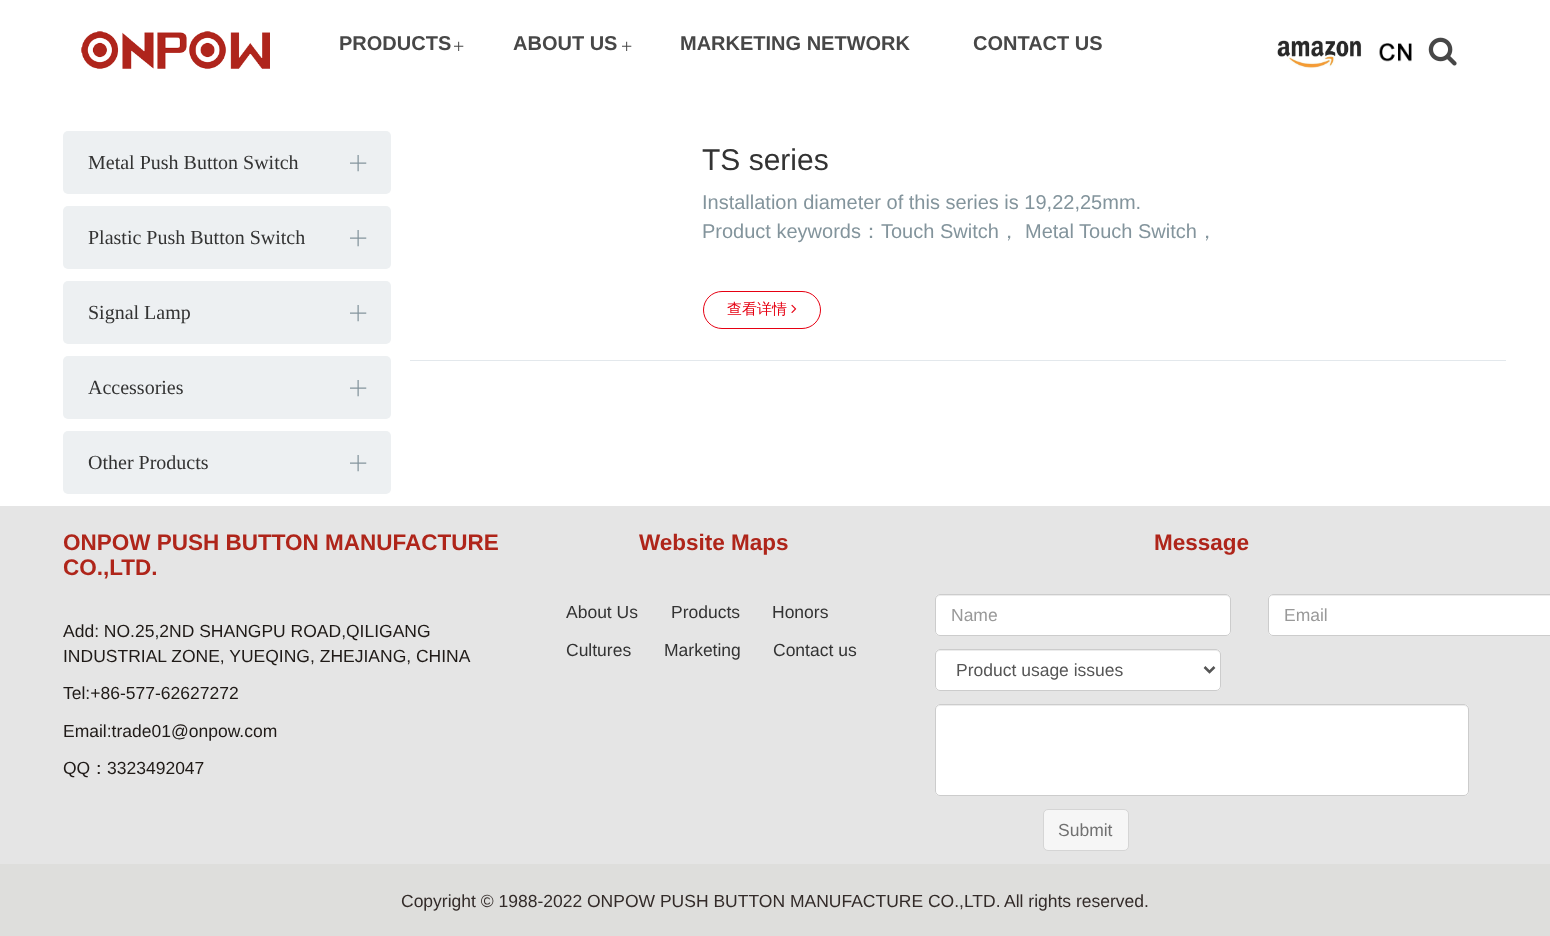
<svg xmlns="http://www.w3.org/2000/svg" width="1550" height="936">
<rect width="100%" height="100%" fill="#fff"/>
<image x="81" y="31" width="189" height="38" href="media/1.png"/>
<text x="339" y="50" style="font-family:Liberation Sans;font-size:20px;font-weight:bold;fill:#474747">PRODUCTS</text>
<text x="453" y="53" style="font-family:Liberation Serif;font-size:20px;fill:#474747">+</text>
<text x="513" y="50" style="font-family:Liberation Sans;font-size:20px;font-weight:bold;fill:#474747">ABOUT US</text>
<text x="621" y="53" style="font-family:Liberation Serif;font-size:20px;fill:#474747">+</text>
<text x="680" y="50" style="font-family:Liberation Sans;font-size:20px;font-weight:bold;fill:#474747">MARKETING NETWORK</text>
<text x="973" y="50" style="font-family:Liberation Sans;font-size:20px;font-weight:bold;fill:#474747">CONTACT US</text>
<image x="1277" y="40" width="85" height="29" href="media/2.png"/>
<image x="1379" y="43" width="33" height="19" href="media/3.png"/>
<image x="1428" y="37" width="29" height="29" href="media/4.png"/>
<rect x="63" y="131" width="328" height="63" rx="5" fill="#edf0f2"/>
<text x="88" y="169" style="font-family:Liberation Serif;font-size:20px;fill:#333">Metal Push Button Switch</text>
<image x="350" y="155" width="17" height="17" href="media/5.png"/>
<rect x="63" y="206" width="328" height="63" rx="5" fill="#edf0f2"/>
<text x="88" y="244" style="font-family:Liberation Serif;font-size:20px;fill:#333">Plastic Push Button Switch</text>
<image x="350" y="230" width="17" height="17" href="media/5.png"/>
<rect x="63" y="281" width="328" height="63" rx="5" fill="#edf0f2"/>
<text x="88" y="319" style="font-family:Liberation Serif;font-size:20px;fill:#333">Signal Lamp</text>
<image x="350" y="305" width="17" height="17" href="media/5.png"/>
<rect x="63" y="356" width="328" height="63" rx="5" fill="#edf0f2"/>
<text x="88" y="394" style="font-family:Liberation Serif;font-size:20px;fill:#333">Accessories</text>
<image x="350" y="380" width="17" height="17" href="media/5.png"/>
<rect x="63" y="431" width="328" height="63" rx="5" fill="#edf0f2"/>
<text x="88" y="469" style="font-family:Liberation Serif;font-size:20px;fill:#333">Other Products</text>
<image x="350" y="455" width="17" height="17" href="media/5.png"/>
<rect x="410" y="360" width="1096" height="1" fill="#e3e8ec"/>
<text x="702" y="170" style="font-family:Liberation Sans;font-size:30px;fill:#333">TS series</text>
<text x="702" y="209" style="font-family:Liberation Sans;font-size:20px;fill:#83949c">Installation diameter of this series is 19,22,25mm.</text>
<text x="702" y="238" style="font-family:Liberation Sans;font-size:20px;fill:#83949c">Product keywords</text>
<text x="861" y="238" style="font-family:WenQuanYi Zen Hei;font-size:20px;font-weight:500;fill:#83949c">：</text>
<text x="881" y="238" style="font-family:Liberation Sans;font-size:20px;fill:#83949c">Touch Switch</text>
<text x="999" y="238" style="font-family:WenQuanYi Zen Hei;font-size:20px;font-weight:500;fill:#83949c">，</text>
<text x="1025" y="238" style="font-family:Liberation Sans;font-size:20px;fill:#83949c">Metal Touch Switch</text>
<text x="1197" y="238" style="font-family:WenQuanYi Zen Hei;font-size:20px;font-weight:500;fill:#83949c">，</text>
<rect x="703.5" y="291.5" width="117" height="37" rx="18.5" fill="none" stroke="#e60012"/>
<text x="727" y="314" style="font-family:WenQuanYi Zen Hei;font-size:15px;font-weight:500;fill:#e60012">查看详情</text>
<image x="791" y="304" width="6" height="9" href="media/6.png"/>
<rect y="506" width="1550" height="358" fill="#e5e5e5"/>
<text x="63" y="550" style="font-family:Liberation Sans;font-size:22.5px;font-weight:bold;fill:#af251a">ONPOW PUSH BUTTON MANUFACTURE</text>
<text x="63" y="575" style="font-family:Liberation Sans;font-size:22.5px;font-weight:bold;fill:#af251a">CO.,LTD.</text>
<text x="63" y="637" style="font-family:Liberation Sans;font-size:17.5px;fill:#1f1a17">Add: NO.25,2ND SHANGPU ROAD,QILIGANG</text>
<text x="63" y="662" style="font-family:Liberation Sans;font-size:17.5px;fill:#1f1a17">INDUSTRIAL ZONE, YUEQING, ZHEJIANG, CHINA</text>
<text x="63" y="699" style="font-family:Liberation Sans;font-size:17.5px;fill:#1f1a17">Tel:+86-577-62627272</text>
<text x="63" y="737" style="font-family:Liberation Sans;font-size:17.5px;fill:#1f1a17">Email:trade01@onpow.com</text>
<text x="63" y="774" style="font-family:Liberation Sans;font-size:17.5px;fill:#1f1a17">QQ</text>
<text x="90" y="774" style="font-family:WenQuanYi Zen Hei;font-size:17.5px;font-weight:500;fill:#1f1a17">：</text>
<text x="107" y="774" style="font-family:Liberation Sans;font-size:17.5px;fill:#1f1a17">3323492047</text>
<text x="639" y="550" style="font-family:Liberation Sans;font-size:22.5px;font-weight:bold;fill:#af251a">Website Maps</text>
<text x="566" y="618" style="font-family:Liberation Sans;font-size:17.5px;fill:#333">About Us</text>
<text x="671" y="618" style="font-family:Liberation Sans;font-size:17.5px;fill:#333">Products</text>
<text x="772" y="618" style="font-family:Liberation Sans;font-size:17.5px;fill:#333">Honors</text>
<text x="566" y="656" style="font-family:Liberation Sans;font-size:17.5px;fill:#333">Cultures</text>
<text x="664" y="656" style="font-family:Liberation Sans;font-size:17.5px;fill:#333">Marketing</text>
<text x="773" y="656" style="font-family:Liberation Sans;font-size:17.5px;fill:#333">Contact us</text>
<text x="1154" y="550" style="font-family:Liberation Sans;font-size:22.5px;font-weight:bold;fill:#af251a">Message</text>
<rect x="935" y="594" width="296" height="42" rx="5" fill="#fff"/>
<path d="M940 596h286c2 0 4 2 4 4c0-3-1-5-4-5h-286c-3 0-4 2-4 5c0-2 2-4 4-4z" fill="#ececec"/>
<rect x="935.5" y="594.5" width="295" height="41" rx="4.5" fill="none" stroke="#ccc"/>
<text x="951" y="621" style="font-family:Liberation Sans;font-size:17.5px;fill:#999">Name</text>
<rect x="1268" y="594" width="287" height="42" rx="5" fill="#fff"/>
<path d="M1272 596h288c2 0 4 2 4 4c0-3-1-5-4-5h-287c-3 0-4 2-4 5c0-2 1-4 3-4z" fill="#ececec"/>
<rect x="1268.5" y="594.5" width="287" height="41" rx="4.5" fill="none" stroke="#ccc"/>
<text x="1284" y="621" style="font-family:Liberation Sans;font-size:17.5px;fill:#999">Email</text>
<rect x="935" y="649" width="286" height="42" rx="5" fill="#fff"/>
<path d="M940 651h276c2 0 4 2 4 4c0-3-1-5-4-5h-276c-3 0-4 2-4 5c0-2 2-4 4-4z" fill="#ececec"/>
<rect x="935.5" y="649.5" width="285" height="41" rx="4.5" fill="none" stroke="#ccc"/>
<path d="M1204.5 667l5 5l5-5" fill="none" stroke="#555" stroke-width="2.5"/>
<text x="956" y="676" style="font-family:Liberation Sans;font-size:17.5px;fill:#555">Product usage issues</text>
<rect x="935" y="704" width="534" height="92" rx="5" fill="#fff"/>
<path d="M940 706h524c2 0 4 2 4 4v-1c0-2-2-4-4-4h-524c-2 0-4 2-4 4v1c0-2 2-4 4-4z" fill="#ececec"/>
<rect x="935.5" y="704.5" width="533" height="91" rx="4.5" fill="none" stroke="#ccc"/>
<rect x="1043.5" y="809.5" width="85" height="41" rx="4.5" fill="#f6f6f6" stroke="#d5d5d5"/>
<text x="1058" y="836" style="font-family:Liberation Sans;font-size:17.5px;fill:#717171">Submit</text>
<rect y="864" width="1550" height="72" fill="#dededc"/>
<text x="401" y="907" style="font-family:Liberation Sans;font-size:17.5px;fill:#332b29">Copyright © 1988-2022</text>
<text x="587" y="907" style="font-family:Liberation Sans;font-size:17.5px;fill:#332b29">ONPOW PUSH BUTTON MANUFACTURE CO.,LTD.</text>
<text x="1004" y="907" style="font-family:Liberation Sans;font-size:17.5px;fill:#332b29">All rights reserved.</text>
</svg>
